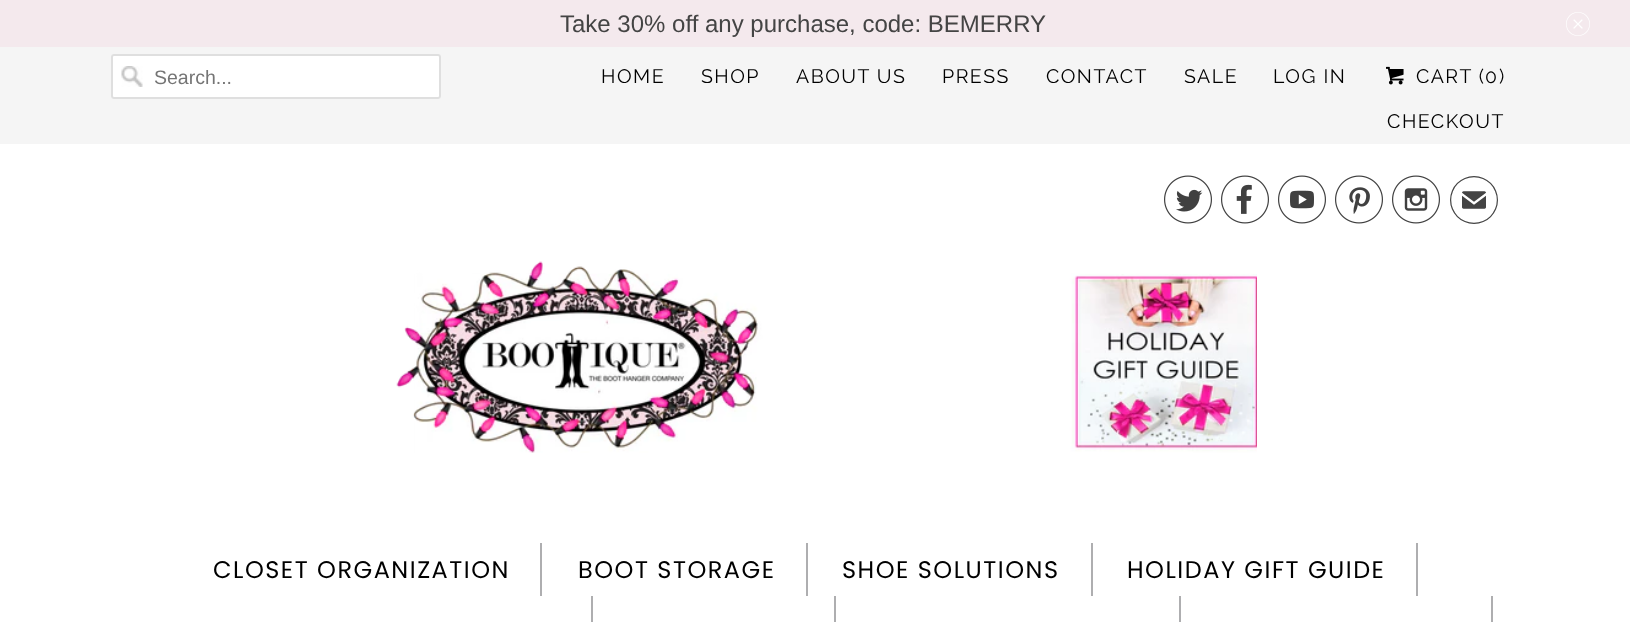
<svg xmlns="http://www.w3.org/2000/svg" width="1630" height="622">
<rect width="100%" height="100%" fill="#fff"/>
<rect width="1630" height="47" fill="#f4e9ed"/>
<text x="560" y="32" style="font-family:Liberation Sans;font-size:24px;fill:#444">Take 30% off any purchase, code: BEMERRY</text>
<text x="1566" y="36" style="font-family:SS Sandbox;font-size:24px;fill:#fff">␡</text>
<rect y="47" width="1630" height="97" fill="#f5f5f5"/>
<rect x="111" y="54" width="330" height="45" rx="3" fill="#fff"/>
<image x="121" y="66" width="22" height="21" href="media/1.png"/>
<rect x="112" y="55" width="328" height="43" rx="2" fill="none" stroke="#dfdfdf" stroke-width="2"/>
<text x="154" y="84" style="font-family:Liberation Sans;font-size:19.5px;fill:#757575">Search...</text>
<text x="601" y="83" style="font-family:Raleway;font-size:19.5px;letter-spacing:1.5px;fill:#000">HOME</text>
<text x="701" y="83" style="font-family:Raleway;font-size:19.5px;letter-spacing:1.5px;fill:#000">SHOP</text>
<text x="796" y="83" style="font-family:Raleway;font-size:19.5px;letter-spacing:1.5px;fill:#000">ABOUT US</text>
<text x="942" y="83" style="font-family:Raleway;font-size:19.5px;letter-spacing:1.5px;fill:#000">PRESS</text>
<text x="1046" y="83" style="font-family:Raleway;font-size:19.5px;letter-spacing:1.5px;fill:#000">CONTACT</text>
<text x="1184" y="83" style="font-family:Raleway;font-size:19.5px;letter-spacing:1.5px;fill:#000">SALE</text>
<text x="1273" y="83" style="font-family:Raleway;font-size:19.5px;letter-spacing:1.5px;fill:#000">LOG IN</text>
<image x="1386" y="66" width="18" height="19" href="media/2.png"/>
<text x="1416" y="83" style="font-family:Raleway;font-size:19.5px;letter-spacing:1.5px;fill:#000">CART (</text>
<text x="1485" y="83" style="font-family:Raleway;font-size:19.5px;letter-spacing:1.5px;fill:#000">0</text>
<text x="1499" y="83" style="font-family:Raleway;font-size:19.5px;letter-spacing:1.5px;fill:#000">)</text>
<text x="1387" y="128" style="font-family:Raleway;font-size:19.5px;letter-spacing:1.5px;fill:#000">CHECKOUT</text>
<image x="1164" y="175" width="48" height="49" href="media/3.png"/>
<image x="1221" y="175" width="48" height="49" href="media/4.png"/>
<image x="1278" y="175" width="48" height="49" href="media/5.png"/>
<image x="1335" y="175" width="48" height="49" href="media/6.png"/>
<image x="1392" y="175" width="48" height="49" href="media/7.png"/>
<text x="1450" y="224" style="font-family:SS Sandbox;font-size:48px;fill:#444">✉</text>
<image x="396" y="261" width="861" height="192" href="media/8.png"/>
<rect x="540" y="543" width="2" height="53" fill="#aeaeb0"/>
<text x="213" y="578" style="font-family:Poppins;font-size:24px;letter-spacing:1.5px;fill:#000">CLOSET ORGANIZATION</text>
<rect x="806" y="543" width="2" height="53" fill="#aeaeb0"/>
<text x="578" y="578" style="font-family:Poppins;font-size:24px;letter-spacing:1.5px;fill:#000">BOOT STORAGE</text>
<rect x="1091" y="543" width="2" height="53" fill="#aeaeb0"/>
<text x="842" y="578" style="font-family:Poppins;font-size:24px;letter-spacing:1.5px;fill:#000">SHOE SOLUTIONS</text>
<rect x="1416" y="543" width="2" height="53" fill="#aeaeb0"/>
<text x="1127" y="578" style="font-family:Poppins;font-size:24px;letter-spacing:1.5px;fill:#000">HOLIDAY GIFT GUIDE</text>
<rect x="591" y="596" width="2" height="26" fill="#aeaeb0"/>
<rect x="834" y="596" width="2" height="26" fill="#aeaeb0"/>
<rect x="1179" y="596" width="2" height="26" fill="#aeaeb0"/>
<rect x="1491" y="596" width="2" height="26" fill="#aeaeb0"/>
</svg>
